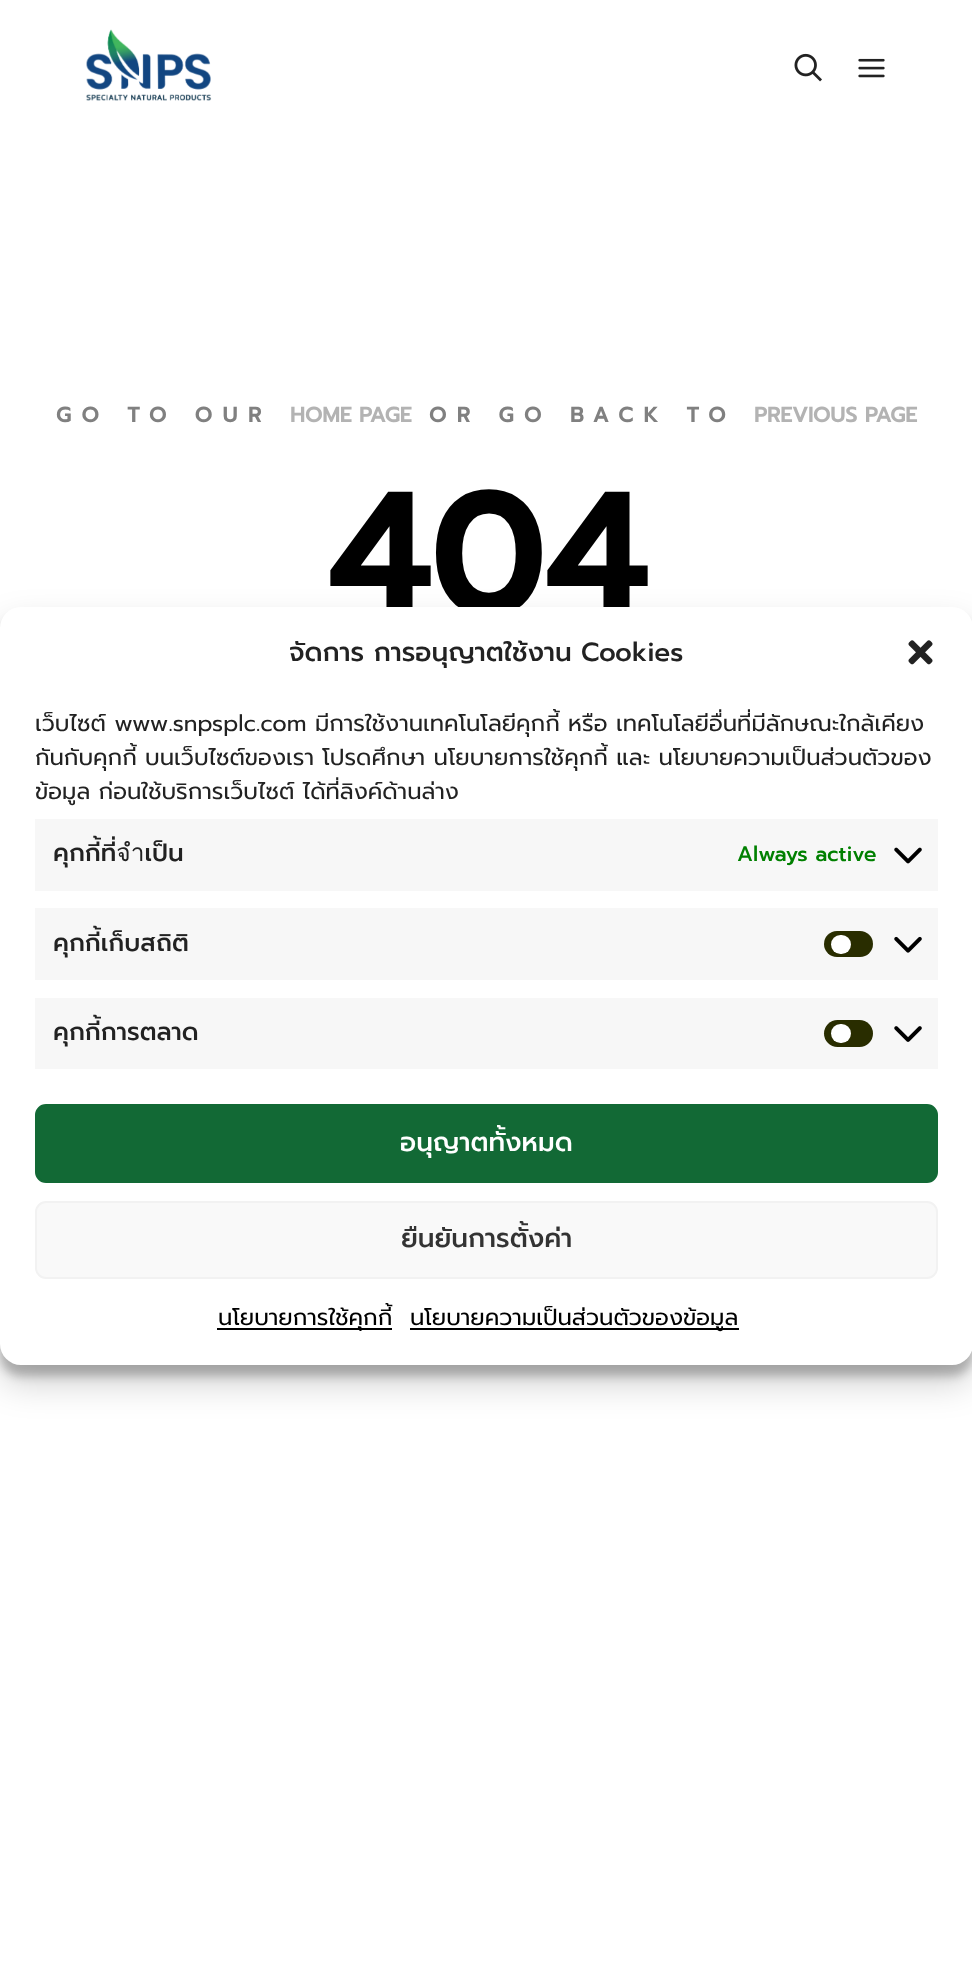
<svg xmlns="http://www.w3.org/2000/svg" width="972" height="1969">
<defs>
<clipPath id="clip1"><rect x="35" y="707" width="903" height="362"/></clipPath>
</defs>
<rect width="100%" height="100%" fill="#fff"/>
<image x="86" y="29" width="126" height="72" href="media/1.png"/>
<image x="794" y="53" width="28" height="29" href="media/2.png"/>
<image x="858" y="58" width="27" height="20" href="media/3.png"/>
<text x="56" y="422" style="font-family:Prompt;font-size:21px;font-weight:bold;letter-spacing:10.5px;fill:#808080">GO TO OUR</text>
<text x="290" y="422" style="font-family:Prompt;font-size:21px;font-weight:bold;fill:#b3b3b3">HOME PAGE</text>
<text x="429" y="422" style="font-family:Prompt;font-size:21px;font-weight:bold;letter-spacing:10.5px;fill:#808080">OR GO BACK TO</text>
<text x="754" y="422" style="font-family:Prompt;font-size:21px;font-weight:bold;fill:#b3b3b3">PREVIOUS PAGE</text>
<text x="327" y="614" style="font-family:Prompt;font-size:168px;font-weight:bold;fill:#000">404</text>
<rect y="618" width="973" height="758" rx="21" fill="#0000003b" filter="blur(5px)"/>
<rect y="625" width="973" height="758" rx="21" fill="#00000030" filter="blur(17.5px)"/>
<rect y="607" width="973" height="758" rx="21" fill="#fff"/>
<text x="289" y="661" style="font-family:Prompt;font-size:26.25px;font-weight:500;fill:#222">จัดการ การอนุญาตใช้งาน Cookies</text>
<image x="908" y="640" width="25" height="25" href="media/4.png"/>
<g clip-path="url(#clip1)">
<text x="35" y="731" style="font-family:Prompt;font-size:22.75px;fill:#222">เว็บไซต์ www.snpsplc.com มีการใช้งานเทคโนโลยีคุกกี้ หรือ เทคโนโลยีอื่นที่มีลักษณะใกล้เคียง</text>
<text x="35" y="765" style="font-family:Prompt;font-size:22.75px;fill:#222">กันกับคุกกี้ บนเว็บไซต์ของเรา โปรดศึกษา นโยบายการใช้คุกกี้ และ นโยบายความเป็นส่วนตัวของ</text>
<text x="35" y="799" style="font-family:Prompt;font-size:22.75px;fill:#222">ข้อมูล ก่อนใช้บริการเว็บไซต์ ได้ที่ลิงค์ด้านล่าง</text>
</g>
<rect x="35" y="819" width="903" height="72" fill="#f7f7f7"/>
<text x="53" y="861" style="font-family:Prompt;font-size:24.5px;font-weight:500;fill:#222">คุกกี้ที่จำเป็น</text>
<text x="737" y="861" style="font-family:Prompt;font-size:21px;font-weight:500;fill:#008000">Always active</text>
<image x="894" y="847" width="28" height="17" href="media/5.png"/>
<rect x="35" y="908" width="903" height="72" fill="#f7f7f7"/>
<text x="53" y="951" style="font-family:Prompt;font-size:24.5px;font-weight:500;fill:#222">คุกกี้เก็บสถิติ</text>
<rect x="824" y="931" width="49" height="26" rx="13" fill="#292d00"/>
<rect x="831" y="935" width="20" height="19" rx="9.5" fill="#fff"/>
<image x="894" y="936" width="28" height="17" href="media/6.png"/>
<rect x="35" y="998" width="903" height="71" fill="#f7f7f7"/>
<text x="53" y="1040" style="font-family:Prompt;font-size:24.5px;font-weight:500;fill:#222">คุกกี้การตลาด</text>
<rect x="824" y="1020" width="49" height="27" rx="13.5" fill="#292d00"/>
<rect x="831" y="1024" width="20" height="19" rx="9.5" fill="#fff"/>
<image x="894" y="1026" width="28" height="16" href="media/7.png"/>
<rect x="36" y="1105" width="901" height="77" rx="10" fill="#126935" stroke="#126935" stroke-width="2"/>
<text x="400" y="1151" style="font-family:Prompt;font-size:26.25px;font-weight:500;fill:#fff">อนุญาตทั้งหมด</text>
<rect x="36" y="1202" width="901" height="76" rx="10" fill="#f9f9f9" stroke="#f2f2f2" stroke-width="2"/>
<text x="401" y="1247" style="font-family:Prompt;font-size:26.25px;font-weight:500;fill:#333">ยืนยันการตั้งค่า</text>
<rect x="217" y="1328" width="175" height="2" fill="#000"/>
<text x="218" y="1325" style="font-family:Prompt;font-size:22.75px;fill:#000">นโยบายการใช้คุกกี้</text>
<rect x="410" y="1328" width="329" height="2" fill="#000"/>
<text x="410" y="1325" style="font-family:Prompt;font-size:22.75px;fill:#000">นโยบายความเป็นส่วนตัวของข้อมูล</text>
</svg>
